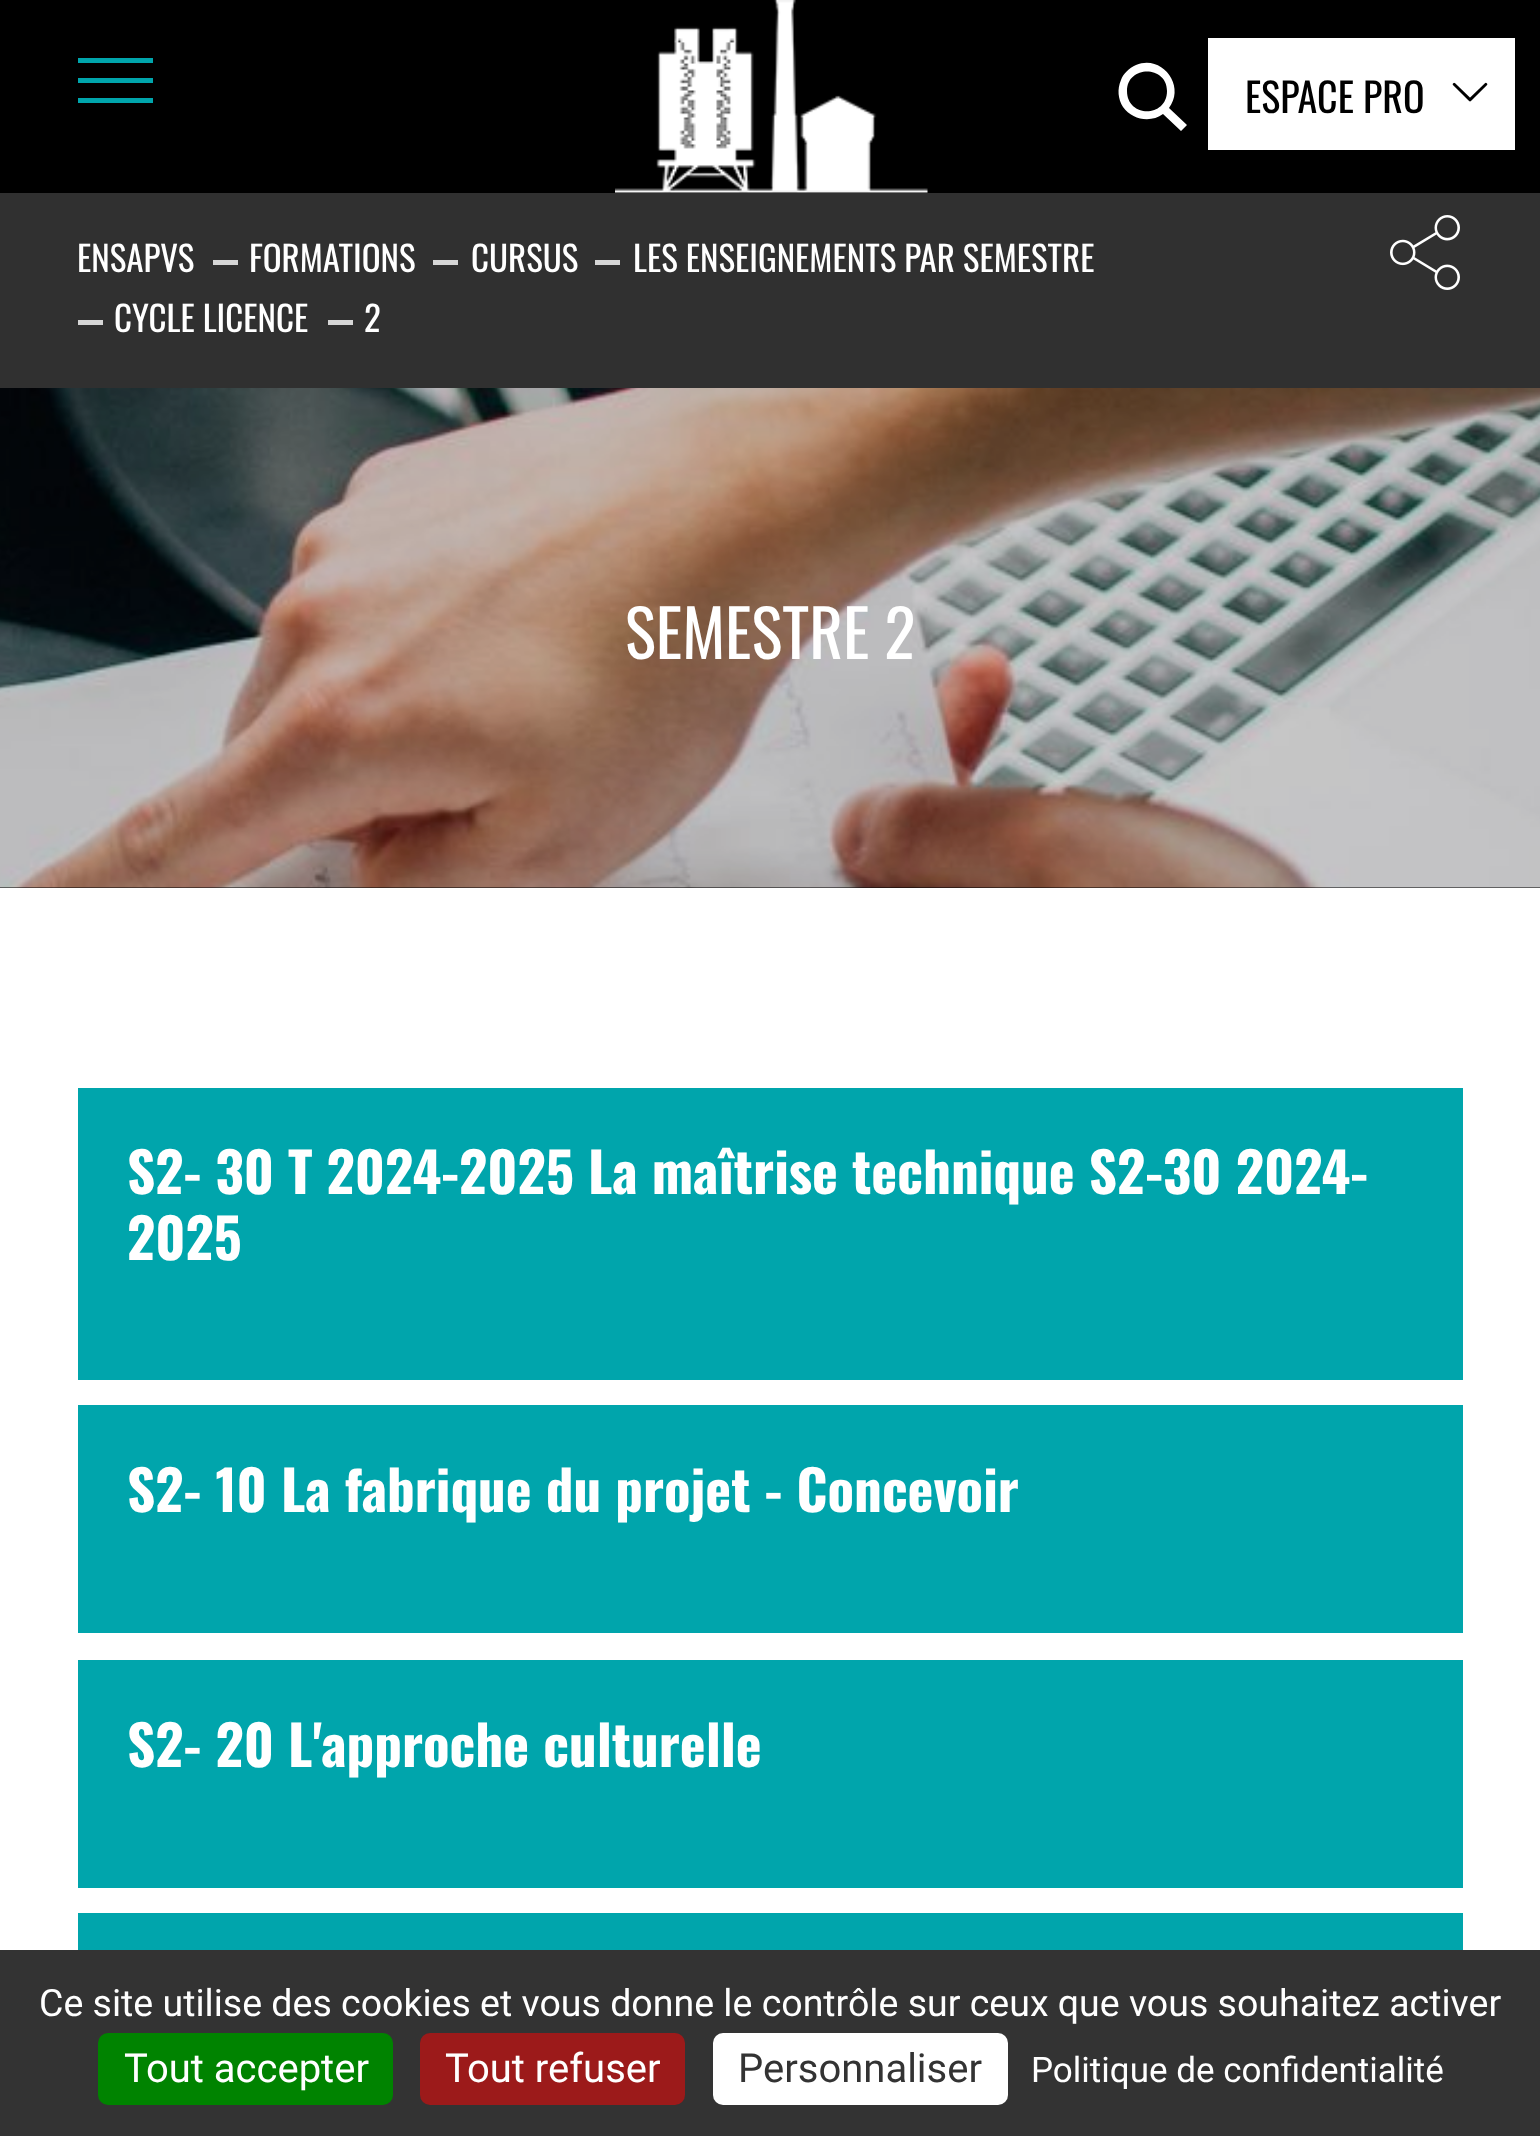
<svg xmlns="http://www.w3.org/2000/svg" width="1540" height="2136">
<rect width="100%" height="100%" fill="#fff"/>
<rect width="1540" height="193" fill="#000"/>
<rect x="78" y="78" width="75" height="5" fill="#00a5ac"/>
<rect x="78" y="58" width="75" height="5" fill="#00a5ac"/>
<rect x="78" y="98" width="75" height="5" fill="#00a5ac"/>
<image x="615" y="0" width="313" height="193" href="media/1.png"/>
<path d="M1187 125l-6 6l-18-17c-12 9-31 6-40-7c-5-8-6-18-2-27c2-6 8-12 15-15c26-11 50 21 33 43zm-60-34c0 27 40 27 40 0c0-26-40-26-40 0z" fill="#fff"/>
<rect x="1208" y="38" width="307" height="112" fill="#fff"/>
<text x="1245" y="113" style="font-family:Oswald;font-size:40px;fill:#000">ESPACE PRO</text>
<image x="1452" y="82" width="36" height="20" href="media/2.png"/>
<rect y="193" width="1540" height="195" fill="#303030"/>
<text x="77" y="272" style="font-family:Oswald;font-size:35px;fill:#fff">ENSAPVS</text>
<rect x="213" y="260" width="25" height="5" fill="#d6d6d6"/>
<text x="249" y="272" style="font-family:Oswald;font-size:35px;fill:#fff">FORMATIONS</text>
<rect x="433" y="260" width="25" height="5" fill="#d6d6d6"/>
<text x="471" y="272" style="font-family:Oswald;font-size:35px;fill:#fff">CURSUS</text>
<rect x="595" y="260" width="25" height="5" fill="#d6d6d6"/>
<text x="633" y="272" style="font-family:Oswald;font-size:35px;fill:#fff">LES ENSEIGNEMENTS PAR SEMESTRE</text>
<rect x="78" y="320" width="25" height="5" fill="#d6d6d6"/>
<text x="114" y="332" style="font-family:Oswald;font-size:35px;fill:#fff">CYCLE LICENCE</text>
<rect x="328" y="320" width="25" height="5" fill="#d6d6d6"/>
<text x="364" y="332" style="font-family:Oswald;font-size:35px;fill:#fff">2</text>
<image x="1390" y="215" width="70" height="75" href="media/3.png"/>
<rect y="887" width="1540" height="1" fill="#000"/>
<image x="0" y="388" width="1540" height="500" href="media/4.png"/>
<text x="625" y="659" style="font-family:Oswald;font-size:65px;fill:#fff">SEMESTRE 2</text>
<rect x="78" y="1088" width="1385" height="292" fill="#00a5ac"/>
<text x="127" y="1194" style="font-family:Oswald;font-size:55px;font-weight:bold;fill:#fff">S2- 30 T 2024-2025 La maîtrise technique S2-30 2024-</text>
<text x="127" y="1260" style="font-family:Oswald;font-size:55px;font-weight:bold;fill:#fff">2025</text>
<rect x="78" y="1405" width="1385" height="228" fill="#00a5ac"/>
<text x="127" y="1512" style="font-family:Oswald;font-size:55px;font-weight:bold;fill:#fff">S2- 10 La fabrique du projet - Concevoir</text>
<rect x="78" y="1660" width="1385" height="228" fill="#00a5ac"/>
<text x="127" y="1767" style="font-family:Oswald;font-size:55px;font-weight:bold;fill:#fff">S2- 20 L'approche culturelle</text>
<rect x="78" y="1913" width="1385" height="37" fill="#00a5ac"/>
<rect y="1950" width="1540" height="186" fill="#333"/>
<text x="39" y="2016" style="font-family:Roboto;font-size:37.5px;fill:#fff">Ce site utilise des cookies et vous donne le contrôle sur ceux que vous souhaitez activer</text>
<rect x="98" y="2033" width="295" height="72" rx="10" fill="#008300"/>
<text x="124" y="2082" style="font-family:Roboto;font-size:40px;fill:#fff">Tout accepter</text>
<rect x="420" y="2033" width="265" height="72" rx="10" fill="#9c1a1a"/>
<text x="445" y="2082" style="font-family:Roboto;font-size:40px;fill:#fff">Tout refuser</text>
<rect x="713" y="2033" width="295" height="72" rx="10" fill="#fff"/>
<text x="738" y="2082" style="font-family:Roboto;font-size:40px;fill:#333">Personnaliser</text>
<text x="1031" y="2082" style="font-family:Roboto;font-size:35px;fill:#fff">Politique de confidentialité</text>
</svg>
